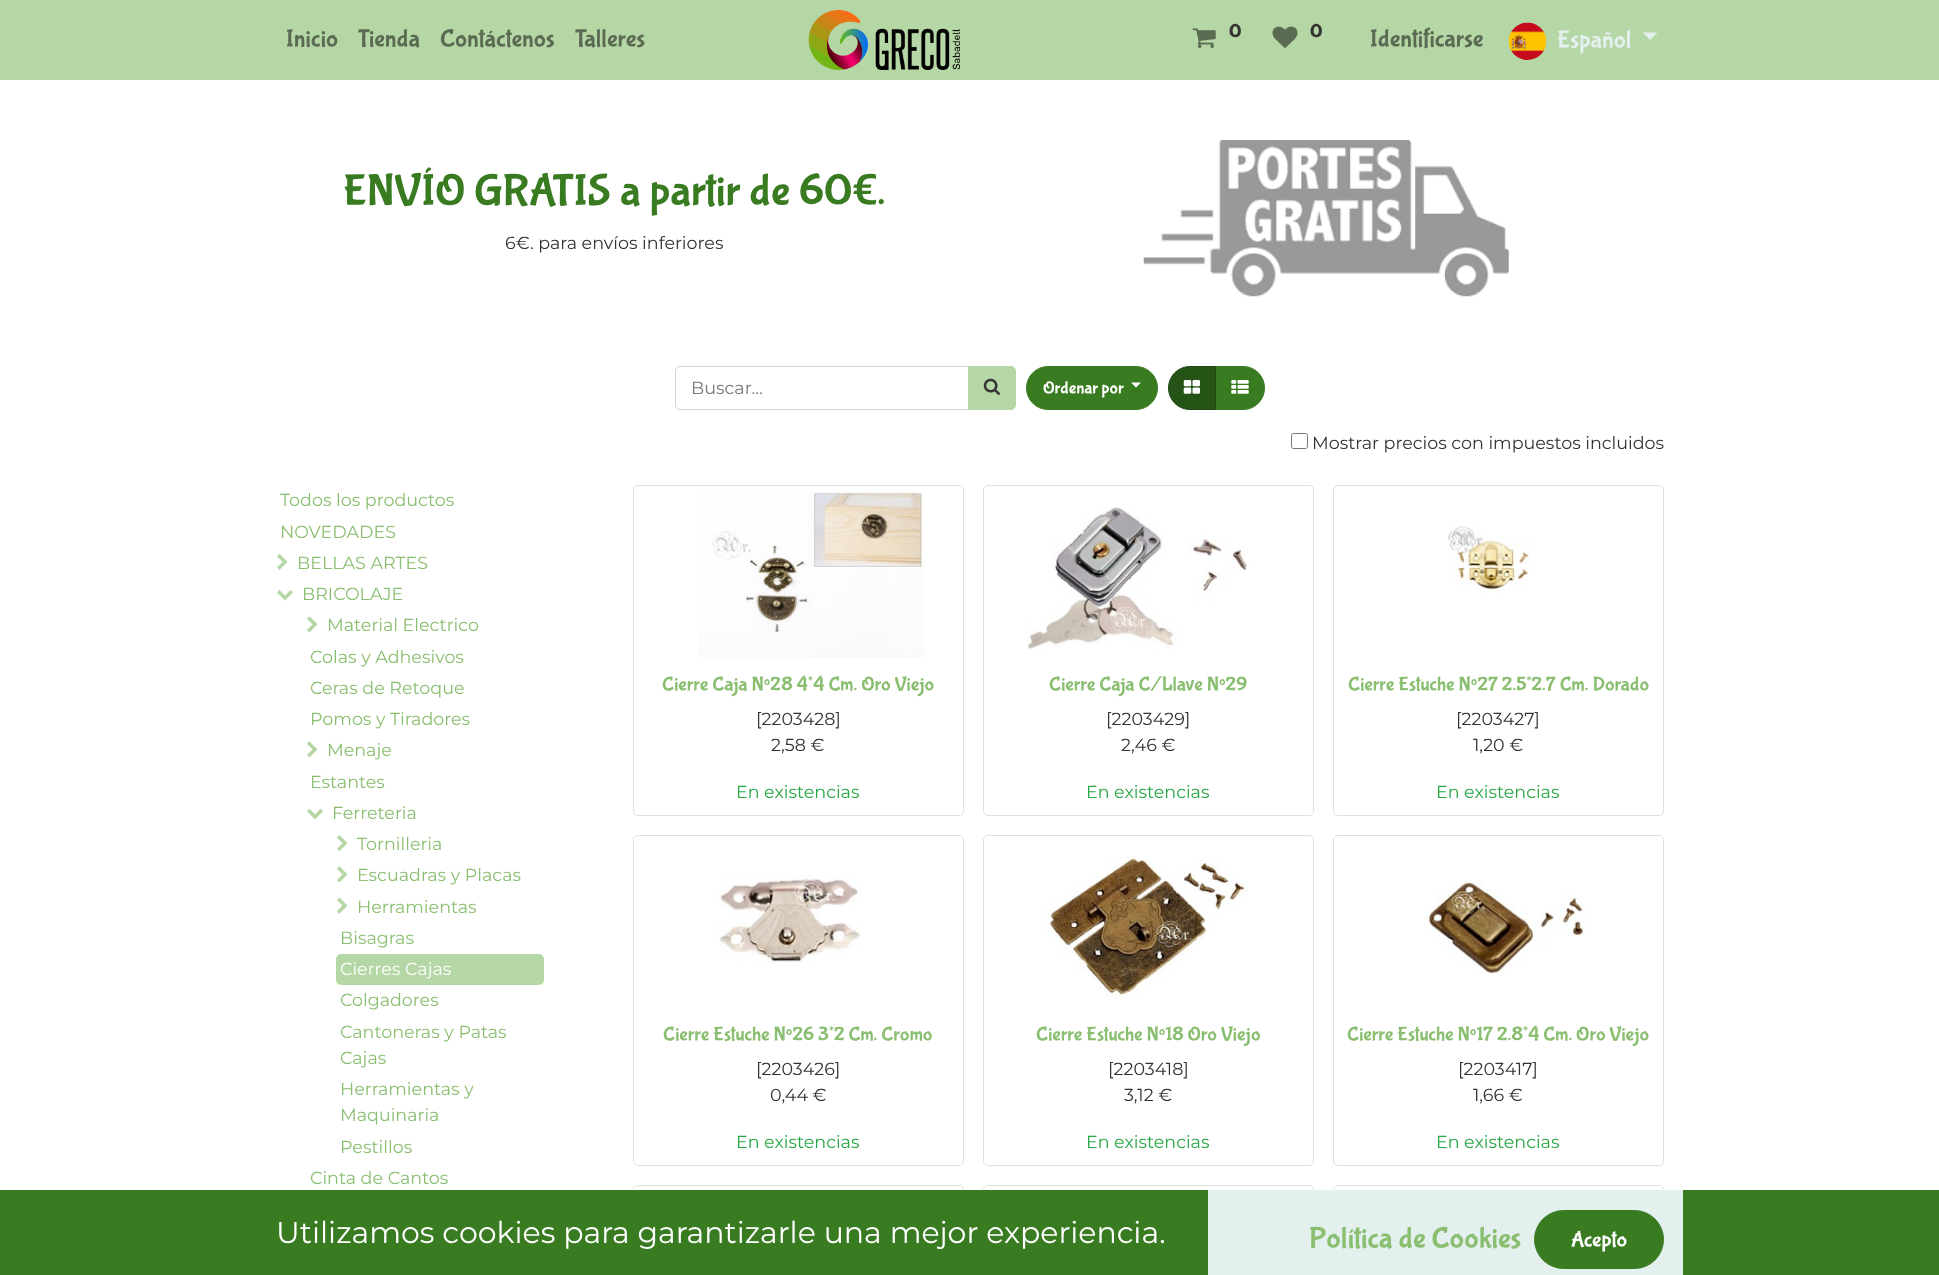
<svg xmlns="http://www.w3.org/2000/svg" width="1939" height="1275">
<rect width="100%" height="100%" fill="#fff"/>
<rect width="1939" height="80" fill="#b5d6a5"/>
<text x="286" y="46" style="font-family:Bubblegum Sans;font-size:25px;fill:#5b6b53">Inicio</text>
<text x="358" y="46" style="font-family:Bubblegum Sans;font-size:25px;fill:#5b6b53">Tienda</text>
<text x="440" y="46" style="font-family:Bubblegum Sans;font-size:25px;fill:#5b6b53">Contáctenos</text>
<text x="575" y="46" style="font-family:Bubblegum Sans;font-size:25px;fill:#5b6b53">Talleres</text>
<image x="808" y="10" width="152" height="60" href="media/1.png"/>
<image x="1192" y="28" width="24" height="20" href="media/2.png"/>
<text x="1229" y="37" style="font-family:Bubblegum Sans;font-size:19px;font-weight:bold;fill:#333">0</text>
<image x="1272" y="26" width="26" height="22" href="media/3.png"/>
<text x="1310" y="37" style="font-family:Bubblegum Sans;font-size:19px;font-weight:bold;fill:#333">0</text>
<text x="1370" y="46" style="font-family:Bubblegum Sans;font-size:25px;fill:#5b6b53">Identificarse</text>
<image x="1508" y="22" width="39" height="38" href="media/4.png"/>
<text x="1557" y="47" style="font-family:Bubblegum Sans;font-size:25px;fill:#e3f0ee">Español</text>
<path d="M1642.5 32.5h15l-7.5 7.5z" fill="#e3f0ee"/>
<text x="343" y="204" style="font-family:Bubblegum Sans;font-size:45px;fill:#397b21">ENVÍO GRATIS a partir de 60€.</text>
<text x="505" y="249" style="font-family:Montserrat;font-size:17.5px;fill:#333">6€. para envíos inferiores</text>
<image x="1143" y="140" width="366" height="157" href="media/5.png"/>
<path d="M680 366.5h288.5v43h-288.5c-2.5 0-4.5-2-4.5-4.5v-34c0-2.5 2-4.5 4.5-4.5z" fill="none" stroke="#ced4da"/>
<text x="691" y="394" style="font-family:Montserrat;font-size:17.5px;fill:#777">Buscar…</text>
<path d="M968.5 366.5h42.5c2.5 0 4.5 2 4.5 4.5v34c0 2.5-2 4.5-4.5 4.5h-42.5z" fill="#b5d6a5" stroke="#b5d6a5"/>
<image x="983" y="378" width="17" height="17" href="media/6.png"/>
<rect x="1026.5" y="366.5" width="131" height="43" rx="21.5" fill="#397b21" stroke="#397b21"/>
<text x="1043" y="393" style="font-family:Bubblegum Sans;font-size:17.5px;fill:#fff">Ordenar por</text>
<path d="M1131 382.5h10l-5 5z" fill="#fff"/>
<path d="M1215.5 366.5h27.5c12 0 21.5 9.5 21.5 21.5c0 12-9.5 21.5-21.5 21.5h-27.5z" fill="#397b21" stroke="#397b21"/>
<path d="M1190 366.5h25.5v43h-25.5c-12 0-21.5-9.5-21.5-21.5c0-12 9.5-21.5 21.5-21.5z" fill="#265316" stroke="#224914"/>
<image x="1183" y="380" width="17" height="14" href="media/7.png"/>
<image x="1231" y="380" width="18" height="14" href="media/8.png"/>
<rect x="1291.5" y="433.5" width="16" height="15" rx="2" fill="none" stroke="#767676"/>
<text x="1312" y="449" style="font-family:Montserrat;font-size:17.5px;fill:#333">Mostrar precios con impuestos incluidos</text>
<text x="280" y="506" style="font-family:Montserrat;font-size:17.5px;fill:#8abe70">Todos los productos</text>
<text x="280" y="538" style="font-family:Montserrat;font-size:17.5px;fill:#8abe70">NOVEDADES</text>
<image x="277" y="554" width="11" height="16" href="media/9.png"/>
<text x="297" y="569" style="font-family:Montserrat;font-size:17.5px;fill:#8abe70">BELLAS ARTES</text>
<image x="277" y="590" width="16" height="11" href="media/10.png"/>
<text x="302" y="600" style="font-family:Montserrat;font-size:17.5px;fill:#8abe70">BRICOLAJE</text>
<image x="307" y="616" width="11" height="17" href="media/11.png"/>
<text x="327" y="631" style="font-family:Montserrat;font-size:17.5px;fill:#8abe70">Material Electrico</text>
<text x="310" y="663" style="font-family:Montserrat;font-size:17.5px;fill:#8abe70">Colas y Adhesivos</text>
<text x="310" y="694" style="font-family:Montserrat;font-size:17.5px;fill:#8abe70">Ceras de Retoque</text>
<text x="310" y="725" style="font-family:Montserrat;font-size:17.5px;fill:#8abe70">Pomos y Tiradores</text>
<image x="307" y="741" width="11" height="17" href="media/11.png"/>
<text x="327" y="756" style="font-family:Montserrat;font-size:17.5px;fill:#8abe70">Menaje</text>
<text x="310" y="788" style="font-family:Montserrat;font-size:17.5px;fill:#8abe70">Estantes</text>
<image x="307" y="809" width="16" height="10" href="media/12.png"/>
<text x="332" y="819" style="font-family:Montserrat;font-size:17.5px;fill:#8abe70">Ferreteria</text>
<image x="337" y="835" width="11" height="16" href="media/13.png"/>
<text x="357" y="850" style="font-family:Montserrat;font-size:17.5px;fill:#8abe70">Tornilleria</text>
<image x="337" y="866" width="11" height="17" href="media/11.png"/>
<text x="357" y="881" style="font-family:Montserrat;font-size:17.5px;fill:#8abe70">Escuadras y Placas</text>
<image x="337" y="897" width="11" height="17" href="media/14.png"/>
<text x="357" y="913" style="font-family:Montserrat;font-size:17.5px;fill:#8abe70">Herramientas</text>
<text x="340" y="944" style="font-family:Montserrat;font-size:17.5px;fill:#8abe70">Bisagras</text>
<rect x="336" y="954" width="208" height="31" rx="5" fill="#b5d6a5"/>
<text x="340" y="975" style="font-family:Montserrat;font-size:17.5px;fill:#fff">Cierres Cajas</text>
<text x="340" y="1006" style="font-family:Montserrat;font-size:17.5px;fill:#8abe70">Colgadores</text>
<text x="340" y="1038" style="font-family:Montserrat;font-size:17.5px;fill:#8abe70">Cantoneras y Patas</text>
<text x="340" y="1064" style="font-family:Montserrat;font-size:17.5px;fill:#8abe70">Cajas</text>
<text x="340" y="1095" style="font-family:Montserrat;font-size:17.5px;fill:#8abe70">Herramientas y</text>
<text x="340" y="1121" style="font-family:Montserrat;font-size:17.5px;fill:#8abe70">Maquinaria</text>
<text x="340" y="1153" style="font-family:Montserrat;font-size:17.5px;fill:#8abe70">Pestillos</text>
<text x="310" y="1184" style="font-family:Montserrat;font-size:17.5px;fill:#8abe70">Cinta de Cantos</text>
<rect x="633.5" y="485.5" width="330" height="330" rx="4.5" fill="none" stroke="#dfdfdf"/>
<path d="M638 486h321c2 0 4 2 4 4v173h-329v-173c0-2 2-4 4-4z" fill="#ffffffe6"/>
<image x="698" y="491" width="226" height="167" href="media/15.png"/>
<path d="M634 663h329v148c0 2-2 4-4 4h-321c-2 0-4-2-4-4z" fill="#ffffffe6"/>
<text x="662" y="690" style="font-family:Bubblegum Sans;font-size:20px;fill:#8abe70">Cierre Caja Nº28 4*4 Cm. Oro Viejo</text>
<text x="756" y="725" style="font-family:Montserrat;font-size:17.5px;fill:#333">[2203428]</text>
<text x="771" y="751" style="font-family:Montserrat;font-size:17.5px;fill:#333">2,58 €</text>
<text x="736" y="798" style="font-family:Montserrat;font-size:17.5px;fill:#28a745">En existencias</text>
<rect x="983.5" y="485.5" width="330" height="330" rx="4.5" fill="none" stroke="#dfdfdf"/>
<path d="M988 486h321c2 0 4 2 4 4v173h-329v-173c0-2 2-4 4-4z" fill="#ffffffe6"/>
<image x="1027" y="507" width="222" height="143" href="media/16.png"/>
<path d="M984 663h329v148c0 2-2 4-4 4h-321c-2 0-4-2-4-4z" fill="#ffffffe6"/>
<text x="1049" y="690" style="font-family:Bubblegum Sans;font-size:20px;fill:#8abe70">Cierre Caja C/Llave Nº29</text>
<text x="1106" y="725" style="font-family:Montserrat;font-size:17.5px;fill:#333">[2203429]</text>
<text x="1121" y="751" style="font-family:Montserrat;font-size:17.5px;fill:#333">2,46 €</text>
<text x="1086" y="798" style="font-family:Montserrat;font-size:17.5px;fill:#28a745">En existencias</text>
<rect x="1333.5" y="485.5" width="330" height="330" rx="4.5" fill="none" stroke="#dfdfdf"/>
<path d="M1338 486h321c2 0 4 2 4 4v173h-329v-173c0-2 2-4 4-4z" fill="#ffffffe6"/>
<image x="1448" y="526" width="82" height="67" href="media/17.png"/>
<path d="M1334 663h329v148c0 2-2 4-4 4h-321c-2 0-4-2-4-4z" fill="#ffffffe6"/>
<text x="1348" y="690" style="font-family:Bubblegum Sans;font-size:20px;fill:#8abe70">Cierre Estuche Nº27 2.5*2.7 Cm. Dorado</text>
<text x="1456" y="725" style="font-family:Montserrat;font-size:17.5px;fill:#333">[2203427]</text>
<text x="1473" y="751" style="font-family:Montserrat;font-size:17.5px;fill:#333">1,20 €</text>
<text x="1436" y="798" style="font-family:Montserrat;font-size:17.5px;fill:#28a745">En existencias</text>
<rect x="633.5" y="835.5" width="330" height="330" rx="4.5" fill="none" stroke="#dfdfdf"/>
<path d="M638 836h321c2 0 4 2 4 4v173h-329v-173c0-2 2-4 4-4z" fill="#ffffffe6"/>
<image x="718" y="874" width="144" height="89" href="media/18.png"/>
<path d="M634 1013h329v148c0 2-2 4-4 4h-321c-2 0-4-2-4-4z" fill="#ffffffe6"/>
<text x="663" y="1040" style="font-family:Bubblegum Sans;font-size:20px;fill:#8abe70">Cierre Estuche Nº26 3*2 Cm. Cromo</text>
<text x="756" y="1075" style="font-family:Montserrat;font-size:17.5px;fill:#333">[2203426]</text>
<text x="770" y="1101" style="font-family:Montserrat;font-size:17.5px;fill:#333">0,44 €</text>
<text x="736" y="1148" style="font-family:Montserrat;font-size:17.5px;fill:#28a745">En existencias</text>
<rect x="983.5" y="835.5" width="330" height="330" rx="4.5" fill="none" stroke="#dfdfdf"/>
<path d="M988 836h321c2 0 4 2 4 4v173h-329v-173c0-2 2-4 4-4z" fill="#ffffffe6"/>
<image x="1047" y="856" width="202" height="144" href="media/19.png"/>
<path d="M984 1013h329v148c0 2-2 4-4 4h-321c-2 0-4-2-4-4z" fill="#ffffffe6"/>
<text x="1036" y="1040" style="font-family:Bubblegum Sans;font-size:20px;fill:#8abe70">Cierre Estuche Nº18 Oro Viejo</text>
<text x="1108" y="1075" style="font-family:Montserrat;font-size:17.5px;fill:#333">[2203418]</text>
<text x="1124" y="1101" style="font-family:Montserrat;font-size:17.5px;fill:#333">3,12 €</text>
<text x="1086" y="1148" style="font-family:Montserrat;font-size:17.5px;fill:#28a745">En existencias</text>
<rect x="1333.5" y="835.5" width="330" height="330" rx="4.5" fill="none" stroke="#dfdfdf"/>
<path d="M1338 836h321c2 0 4 2 4 4v173h-329v-173c0-2 2-4 4-4z" fill="#ffffffe6"/>
<image x="1423" y="880" width="165" height="95" href="media/20.png"/>
<path d="M1334 1013h329v148c0 2-2 4-4 4h-321c-2 0-4-2-4-4z" fill="#ffffffe6"/>
<text x="1347" y="1040" style="font-family:Bubblegum Sans;font-size:20px;fill:#8abe70">Cierre Estuche Nº17 2.8*4 Cm. Oro Viejo</text>
<text x="1458" y="1075" style="font-family:Montserrat;font-size:17.5px;fill:#333">[2203417]</text>
<text x="1473" y="1101" style="font-family:Montserrat;font-size:17.5px;fill:#333">1,66 €</text>
<text x="1436" y="1148" style="font-family:Montserrat;font-size:17.5px;fill:#28a745">En existencias</text>
<rect x="633.5" y="1185.5" width="330" height="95" rx="4.5" fill="none" stroke="#dfdfdf"/>
<path d="M638 1186h321c2 0 4 2 4 4v85h-329v-85c0-2 2-4 4-4z" fill="#ffffffe6"/>
<rect x="983.5" y="1185.5" width="330" height="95" rx="4.5" fill="none" stroke="#dfdfdf"/>
<path d="M988 1186h321c2 0 4 2 4 4v85h-329v-85c0-2 2-4 4-4z" fill="#ffffffe6"/>
<rect x="1333.5" y="1185.5" width="330" height="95" rx="4.5" fill="none" stroke="#dfdfdf"/>
<path d="M1338 1186h321c2 0 4 2 4 4v85h-329v-85c0-2 2-4 4-4z" fill="#ffffffe6"/>
<rect y="1190" width="1939" height="85" fill="#397b21"/>
<text x="276" y="1243" style="font-family:Montserrat;font-size:30px;fill:#fff">Utilizamos cookies para garantizarle una mejor experiencia.</text>
<rect x="1208" y="1190" width="475" height="85" fill="#e3f0ee"/>
<text x="1309" y="1247" style="font-family:Bubblegum Sans;font-size:30px;fill:#8abe70">Política de Cookies</text>
<rect x="1534.5" y="1210.5" width="129" height="58" rx="29" fill="#397b21" stroke="#397b21"/>
<text x="1571" y="1246" style="font-family:Bubblegum Sans;font-size:22px;fill:#fff">Acepto</text>
</svg>
